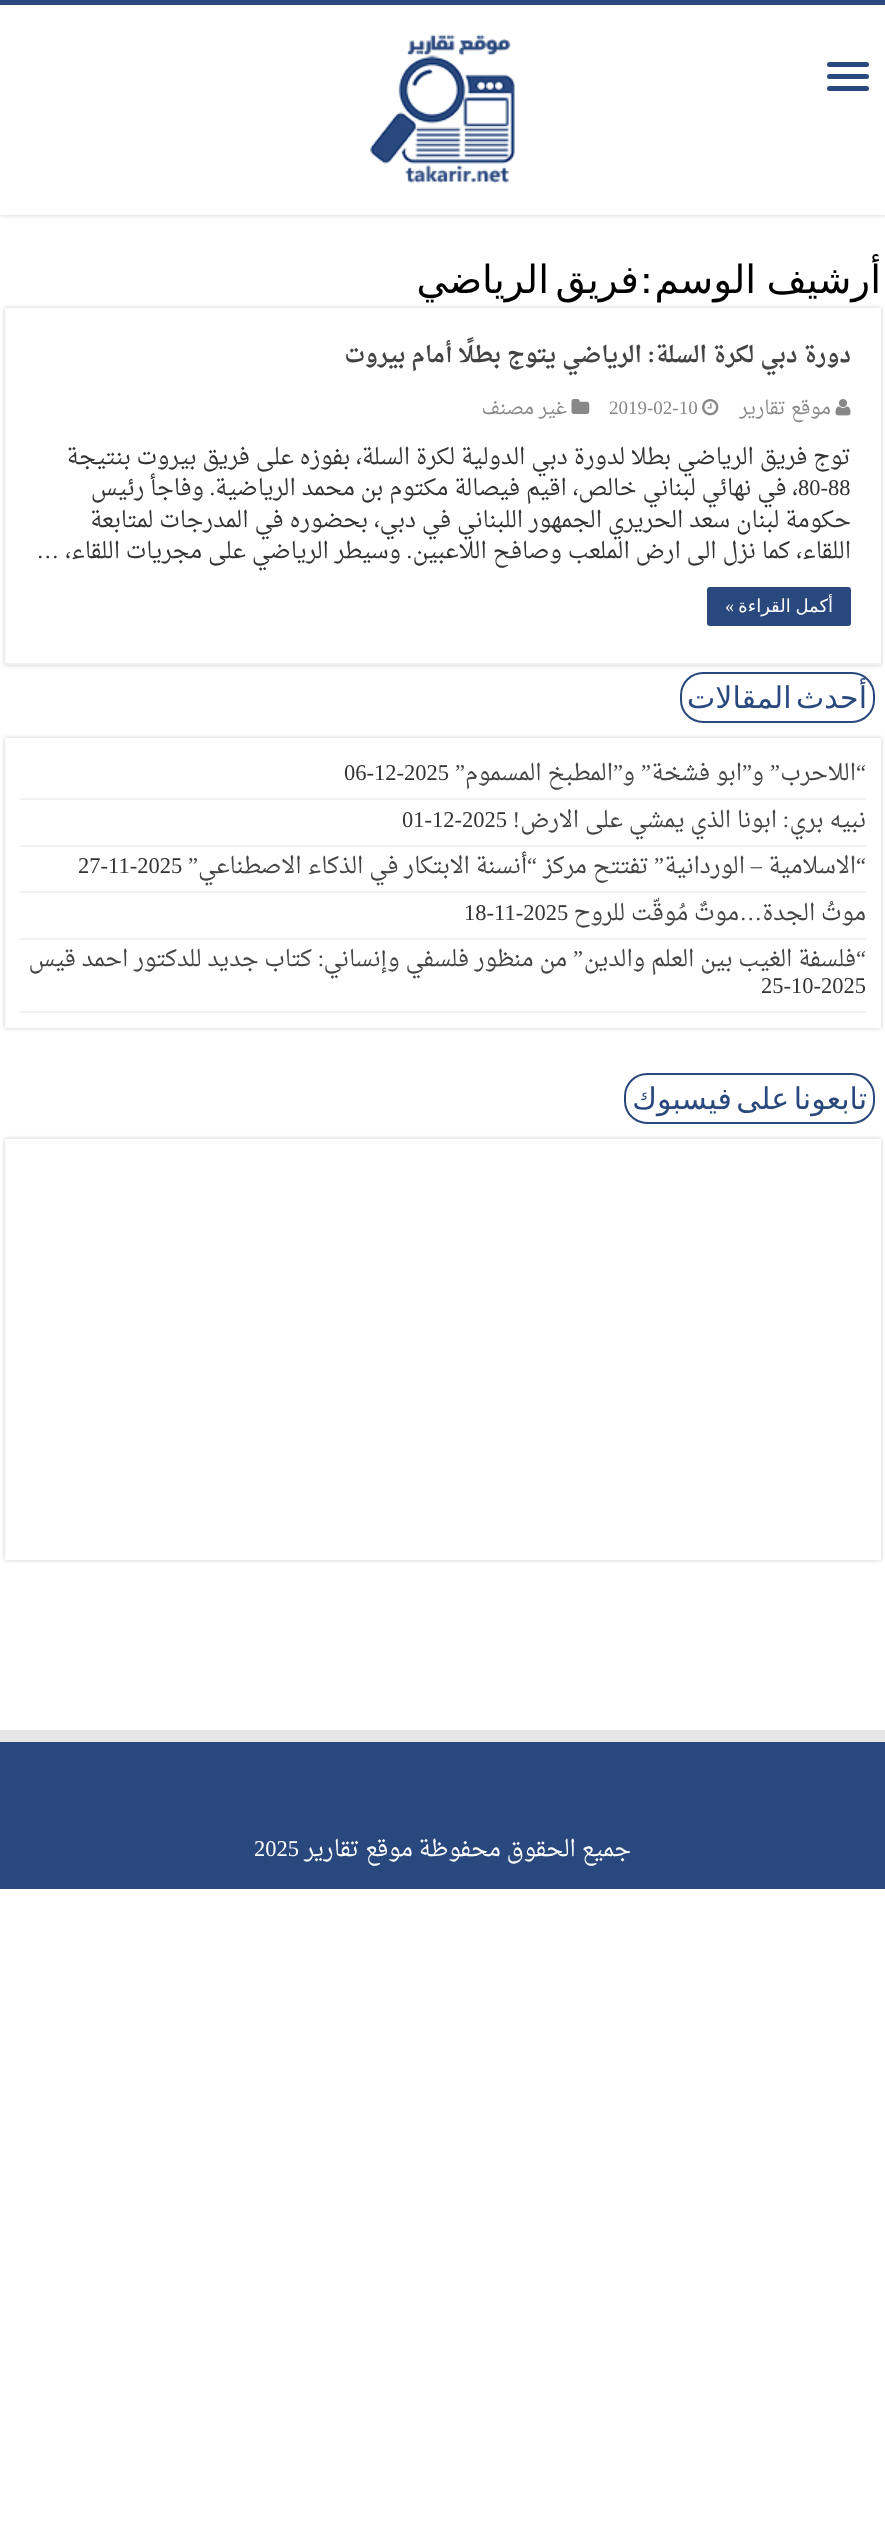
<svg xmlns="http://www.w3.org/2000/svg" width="885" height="2544">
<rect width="100%" height="100%" fill="#fff"/>
<rect width="885" height="215" fill="#cacaca" filter="blur(2px)"/>
<rect y="5" width="885" height="210" fill="#fff"/>
<rect width="885" height="5" fill="#29487d"/>
<rect x="827" y="62" width="42" height="5" rx="2.5" fill="#29487d"/>
<rect x="827" y="74" width="42" height="5" rx="2.5" fill="#29487d"/>
<rect x="827" y="86" width="42" height="5" rx="2.5" fill="#29487d"/>
<image x="370" y="34" width="145" height="150" href="media/1.png"/>
<rect x="5" y="308" width="876" height="357" fill="#cacaca" filter="blur(2px)"/>
<text x="881" y="293" word-spacing="-2" style="font-family:DejaVu Sans;font-size:39px;direction:rtl;fill:#000">أرشيف الوسم</text>
<text x="650" y="293" style="font-family:Bebas Neue;font-size:39px;font-weight:bold;direction:rtl;fill:#000">:</text>
<text x="639" y="293" word-spacing="-6" style="font-family:DejaVu Sans;font-size:39px;direction:rtl;fill:#000">فريق الرياضي</text>
<rect x="5" y="308" width="876" height="355" fill="#fff"/>
<rect x="5" y="663" width="876" height="2" fill="#f2f2f2"/>
<text x="851" y="362" style="font-family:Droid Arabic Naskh;font-size:22.5px;font-weight:bold;direction:rtl;fill:#444">دورة دبي لكرة السلة</text>
<text x="655" y="362" style="font-family:Liberation Serif;font-size:22.5px;font-weight:bold;direction:rtl;fill:#444">:</text>
<text x="642" y="362" style="font-family:Droid Arabic Naskh;font-size:22.5px;font-weight:bold;direction:rtl;fill:#444">الرياضي يتوج بطلًا أمام بيروت</text>
<image x="835" y="399" width="16" height="17" href="media/2.png"/>
<text x="831" y="414" style="font-family:Droid Arabic Naskh;font-size:19px;direction:rtl;fill:#888">موقع تقارير</text>
<image x="702" y="399" width="17" height="17" href="media/3.png"/>
<text x="609" y="414" style="font-family:Liberation Serif;font-size:19px;fill:#888">2019-02-10</text>
<image x="571" y="399" width="19" height="15" href="media/4.png"/>
<text x="567" y="414" style="font-family:Droid Arabic Naskh;font-size:19px;direction:rtl;fill:#888">غير مصنف</text>
<text x="851" y="464" style="font-family:Droid Arabic Naskh;font-size:22.5px;direction:rtl;fill:#333">توج فريق الرياضي بطلا لدورة دبي الدولية لكرة السلة، بفوزه على فريق بيروت بنتيجة</text>
<text x="798" y="495" style="font-family:Liberation Serif;font-size:22.5px;fill:#333">80-88</text>
<text x="798" y="495" style="font-family:Droid Arabic Naskh;font-size:22.5px;direction:rtl;fill:#333">، في نهائي لبناني خالص، اقيم فيصالة مكتوم بن محمد الرياضية</text>
<text x="215" y="495" style="font-family:Liberation Serif;font-size:22.5px;direction:rtl;fill:#333">.</text>
<text x="204" y="495" style="font-family:Droid Arabic Naskh;font-size:22.5px;direction:rtl;fill:#333">وفاجأ رئيس</text>
<text x="851" y="527" style="font-family:Droid Arabic Naskh;font-size:22.5px;direction:rtl;fill:#333">حكومة لبنان سعد الحريري الجمهور اللبناني في دبي، بحضوره في المدرجات لمتابعة</text>
<text x="851" y="558" style="font-family:Droid Arabic Naskh;font-size:22.5px;direction:rtl;fill:#333">اللقاء، كما نزل الى ارض الملعب وصافح اللاعبين</text>
<text x="412" y="558" style="font-family:Liberation Serif;font-size:22.5px;direction:rtl;fill:#333">.</text>
<text x="401" y="558" style="font-family:Droid Arabic Naskh;font-size:22.5px;direction:rtl;fill:#333">وسيطر الرياضي على مجريات اللقاء،</text>
<text x="59" y="558" style="font-family:Liberation Serif;font-size:22.5px;direction:rtl;fill:#333">…</text>
<rect x="707" y="587" width="144" height="39" rx="3" fill="#29487d"/>
<text x="833" y="612" word-spacing="-1" style="font-family:DejaVu Sans;font-size:18px;direction:rtl;fill:#fff">أكمل القراءة</text>
<text x="734" y="612" style="font-family:Liberation Serif;font-size:18px;direction:rtl;fill:#fff">»</text>
<rect x="681" y="673" width="193" height="49" rx="22" fill="none" stroke="#29487d" stroke-width="2"/>
<text x="867" y="708" word-spacing="-5" style="font-family:DejaVu Sans;font-size:30px;direction:rtl;fill:#29487d">أحدث المقالات</text>
<rect x="5" y="738" width="876" height="290" fill="#cacaca" filter="blur(2px)"/>
<rect x="5" y="738" width="876" height="290" fill="#fff"/>
<rect x="20" y="798" width="846" height="2" fill="#f2f2f2"/>
<text x="866" y="780" style="font-family:Liberation Serif;font-size:22.5px;direction:rtl;fill:#444">“</text>
<text x="856" y="780" style="font-family:Droid Arabic Naskh;font-size:22.5px;direction:rtl;fill:#444">اللاحرب</text>
<text x="780" y="780" style="font-family:Liberation Serif;font-size:22.5px;direction:rtl;fill:#444">”</text>
<text x="752" y="780" style="font-family:Liberation Serif;font-size:22.5px;direction:rtl;fill:#444">”</text>
<text x="742" y="780" style="font-family:Droid Arabic Naskh;font-size:22.5px;direction:rtl;fill:#444">ابو فشخة</text>
<text x="651" y="780" style="font-family:Liberation Serif;font-size:22.5px;direction:rtl;fill:#444">”</text>
<text x="623" y="780" style="font-family:Liberation Serif;font-size:22.5px;direction:rtl;fill:#444">”</text>
<text x="613" y="780" style="font-family:Droid Arabic Naskh;font-size:22.5px;direction:rtl;fill:#444">المطبخ المسموم</text>
<text x="465" y="780" style="font-family:Liberation Serif;font-size:22.5px;direction:rtl;fill:#444">”</text>
<text x="344" y="780" style="font-family:Liberation Serif;font-size:22.5px;fill:#333">06-12-2025</text>
<text x="764" y="780" style="font-family:Droid Arabic Naskh;font-size:22.5px;direction:rtl;fill:#444">و</text>
<text x="635" y="780" style="font-family:Droid Arabic Naskh;font-size:22.5px;direction:rtl;fill:#444">و</text>
<rect x="20" y="845" width="846" height="2" fill="#f2f2f2"/>
<text x="866" y="827" style="font-family:Droid Arabic Naskh;font-size:22.5px;direction:rtl;fill:#444">نبيه بري</text>
<text x="789" y="827" style="font-family:Liberation Serif;font-size:22.5px;direction:rtl;fill:#444">:</text>
<text x="777" y="827" style="font-family:Droid Arabic Naskh;font-size:22.5px;direction:rtl;fill:#444">ابونا الذي يمشي على الارض</text>
<text x="520" y="827" style="font-family:Liberation Serif;font-size:22.5px;direction:rtl;fill:#444">!</text>
<text x="402" y="827" style="font-family:Liberation Serif;font-size:22.5px;fill:#333">01-12-2025</text>
<rect x="20" y="891" width="846" height="2" fill="#f2f2f2"/>
<text x="866" y="873" style="font-family:Liberation Serif;font-size:22.5px;direction:rtl;fill:#444">“</text>
<text x="856" y="873" style="font-family:Droid Arabic Naskh;font-size:22.5px;direction:rtl;fill:#444">الاسلامية</text>
<text x="745" y="873" style="font-family:Droid Arabic Naskh;font-size:22.5px;direction:rtl;fill:#444">الوردانية</text>
<text x="664" y="873" style="font-family:Liberation Serif;font-size:22.5px;direction:rtl;fill:#444">”</text>
<text x="649" y="873" style="font-family:Droid Arabic Naskh;font-size:22.5px;direction:rtl;fill:#444">تفتتح مركز</text>
<text x="537" y="873" style="font-family:Liberation Serif;font-size:22.5px;direction:rtl;fill:#444">“</text>
<text x="527" y="873" style="font-family:Droid Arabic Naskh;font-size:22.5px;direction:rtl;fill:#444">أنسنة الابتكار في الذكاء الاصطناعي</text>
<text x="198" y="873" style="font-family:Liberation Serif;font-size:22.5px;direction:rtl;fill:#444">”</text>
<text x="78" y="873" style="font-family:Liberation Serif;font-size:22.5px;fill:#333">27-11-2025</text>
<text x="762" y="873" style="font-family:Liberation Serif;font-size:22.5px;direction:rtl;fill:#444">–</text>
<rect x="20" y="938" width="846" height="2" fill="#f2f2f2"/>
<text x="866" y="920" style="font-family:Droid Arabic Naskh;font-size:22.5px;direction:rtl;fill:#444">موتُ الجدة</text>
<text x="762" y="920" style="font-family:Liberation Serif;font-size:22.5px;direction:rtl;fill:#444">…</text>
<text x="739" y="920" style="font-family:Droid Arabic Naskh;font-size:22.5px;direction:rtl;fill:#444">موتٌ مُوقّت للروح</text>
<text x="464" y="920" style="font-family:Liberation Serif;font-size:22.5px;fill:#333">18-11-2025</text>
<rect x="20" y="1011" width="846" height="2" fill="#f2f2f2"/>
<text x="866" y="966" style="font-family:Liberation Serif;font-size:22.5px;direction:rtl;fill:#444">“</text>
<text x="856" y="966" style="font-family:Droid Arabic Naskh;font-size:22.5px;direction:rtl;fill:#444">فلسفة الغيب بين العلم والدين</text>
<text x="583" y="966" style="font-family:Liberation Serif;font-size:22.5px;direction:rtl;fill:#444">”</text>
<text x="567" y="966" style="font-family:Droid Arabic Naskh;font-size:22.5px;direction:rtl;fill:#444">من منظور فلسفي وإنساني</text>
<text x="312" y="966" style="font-family:Droid Arabic Naskh;font-size:22.5px;direction:rtl;fill:#444">كتاب جديد للدكتور احمد قيس</text>
<text x="324" y="966" style="font-family:Liberation Serif;font-size:22.5px;direction:rtl;fill:#444">:</text>
<text x="761" y="993" style="font-family:Liberation Serif;font-size:22.5px;fill:#333">25-10-2025</text>
<rect x="625" y="1074" width="249" height="49" rx="22" fill="none" stroke="#29487d" stroke-width="2"/>
<text x="867" y="1109" word-spacing="-5" style="font-family:DejaVu Sans;font-size:30px;direction:rtl;fill:#29487d">تابعونا على فيسبوك</text>
<rect x="5" y="1139" width="876" height="421" fill="#cacaca" filter="blur(2px)"/>
<rect x="5" y="1139" width="876" height="421" fill="#fff"/>
<rect y="1730" width="885" height="12" fill="#e6e6e6"/>
<rect y="1742" width="885" height="147" fill="#29487d"/>
<text x="631" y="1856" style="font-family:Droid Arabic Naskh;font-size:22.5px;direction:rtl;fill:#fff">جميع الحقوق محفوظة موقع تقارير</text>
<text x="254" y="1856" style="font-family:Liberation Serif;font-size:22.5px;fill:#fff">2025</text>
</svg>
